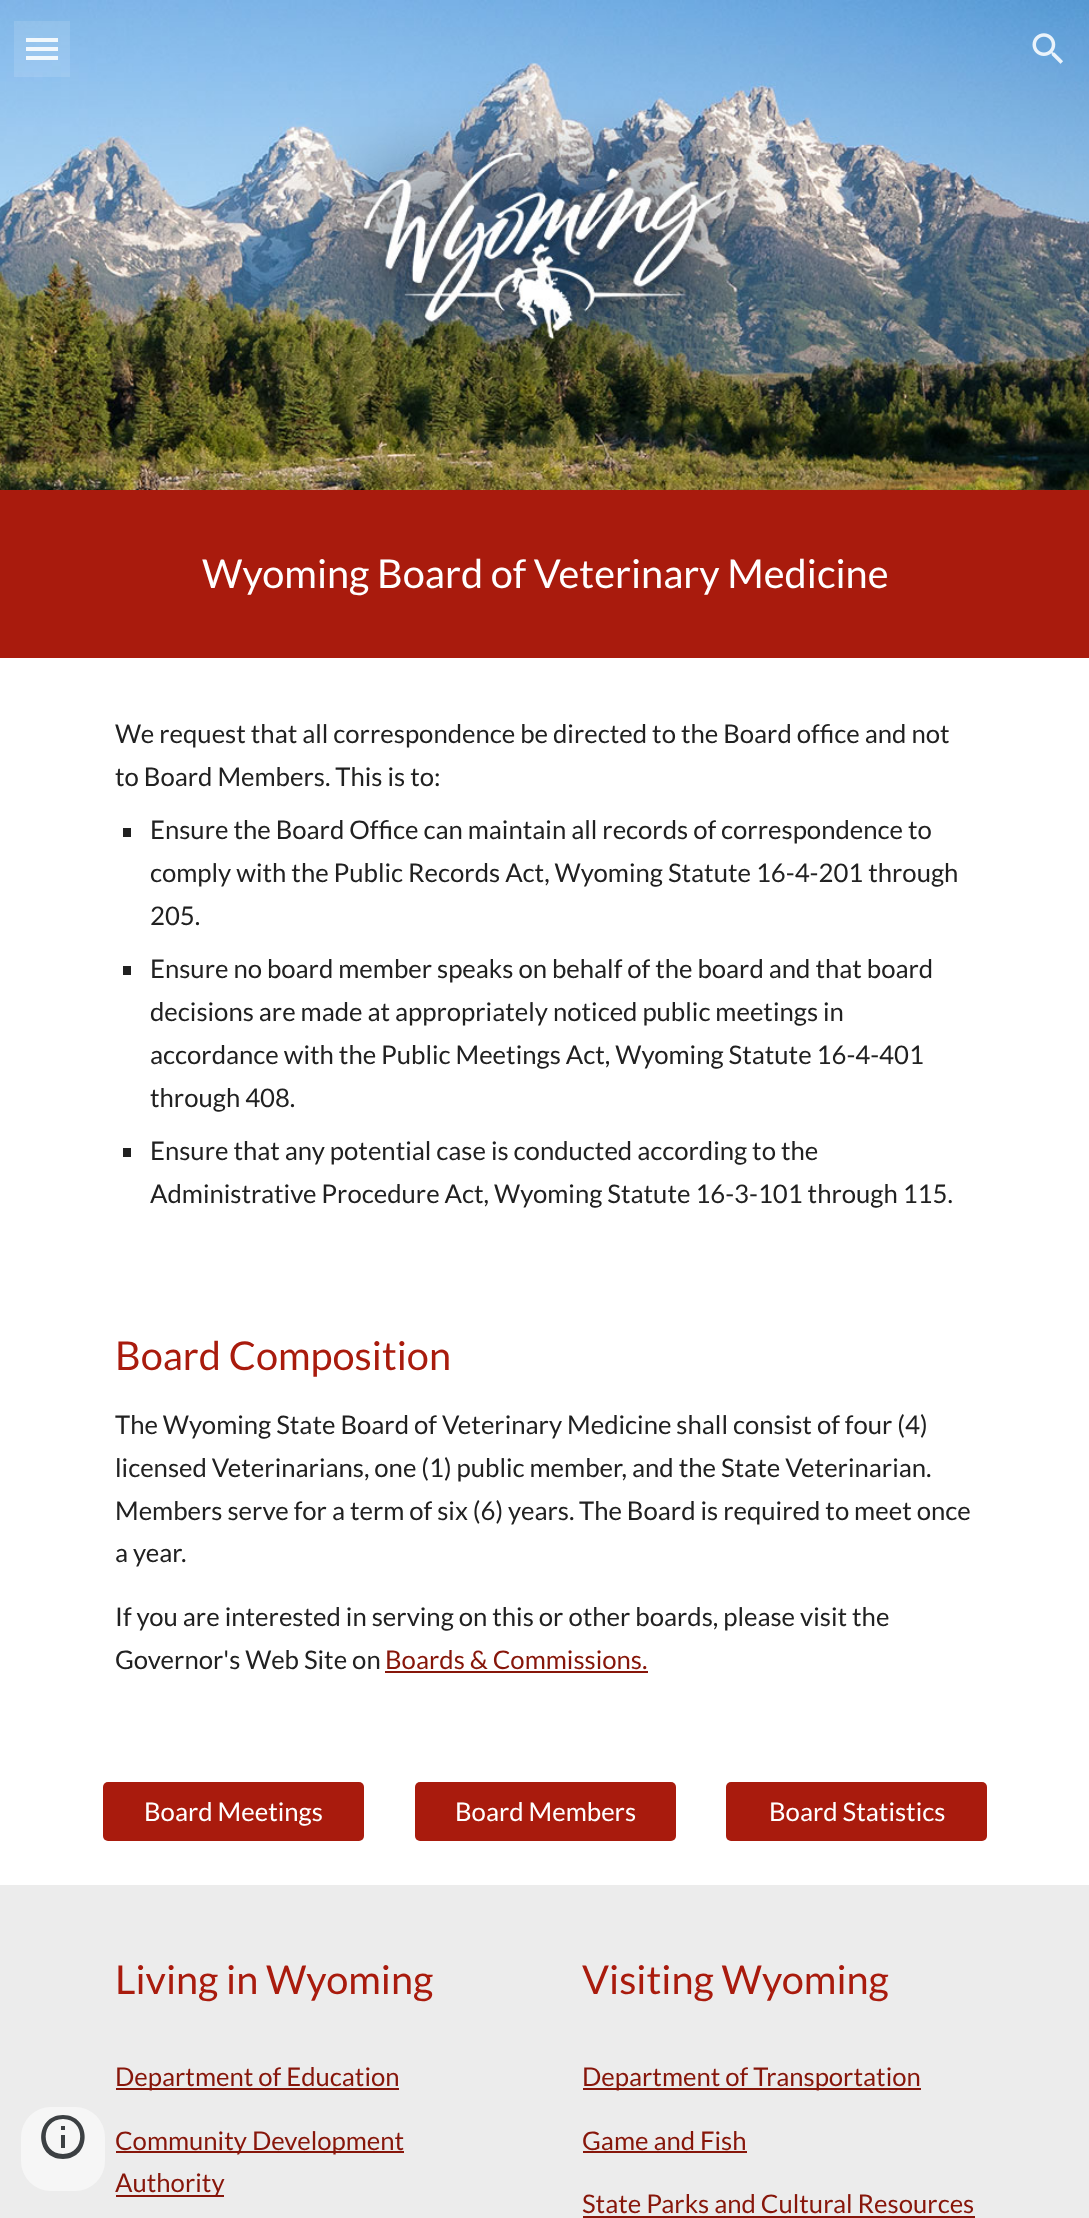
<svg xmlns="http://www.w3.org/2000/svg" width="1089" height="2218">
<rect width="100%" height="100%" fill="#fff"/>
<image x="0" y="0" width="1089" height="490" href="media/2.png"/>
<rect x="26" y="38" width="32" height="4" fill="#f0f7fc"/>
<rect x="26" y="47" width="32" height="4" fill="#ffffffe0"/>
<rect x="26" y="56" width="32" height="4" fill="#f0f7fd"/>
<rect x="14" y="21" width="56" height="56" fill="#ffffff1f"/>
<image x="1032" y="33" width="31" height="31" href="media/1.png"/>
<rect y="490" width="1089" height="168" fill="#a91b0d"/>
<text x="202" y="588" style="font-family:Lato;font-size:39.7px;fill:#fff">Wyoming Board of Veterinary Medicine</text>
<text x="115" y="743" style="font-family:Lato;font-size:25.7px;fill:#212121">We request that all correspondence be directed to the Board office and not</text>
<text x="115" y="786" style="font-family:Lato;font-size:25.7px;fill:#212121">to Board Members. This is to:</text>
<rect x="123" y="828" width="8" height="9" fill="#212121"/>
<text x="150" y="839" style="font-family:Lato;font-size:25.7px;fill:#212121">Ensure the Board Office can maintain all records of correspondence to</text>
<text x="150" y="882" style="font-family:Lato;font-size:25.7px;fill:#212121">comply with the Public Records Act, Wyoming Statute 16-4-201 through</text>
<text x="150" y="925" style="font-family:Lato;font-size:25.7px;fill:#212121">205.</text>
<rect x="123" y="966" width="8" height="9" fill="#212121"/>
<text x="150" y="978" style="font-family:Lato;font-size:25.7px;fill:#212121">Ensure no board member speaks on behalf of the board and that board</text>
<text x="150" y="1021" style="font-family:Lato;font-size:25.7px;fill:#212121">decisions are made at appropriately noticed public meetings in</text>
<text x="150" y="1064" style="font-family:Lato;font-size:25.7px;fill:#212121">accordance with the Public Meetings Act, Wyoming Statute 16-4-401</text>
<text x="150" y="1107" style="font-family:Lato;font-size:25.7px;fill:#212121">through 408.</text>
<rect x="123" y="1148" width="8" height="9" fill="#212121"/>
<text x="150" y="1160" style="font-family:Lato;font-size:25.7px;fill:#212121">Ensure that any potential case is conducted according to the</text>
<text x="150" y="1203" style="font-family:Lato;font-size:25.7px;fill:#212121">Administrative Procedure Act, Wyoming Statute 16-3-101 through 115.</text>
<text x="115" y="1370" style="font-family:Lato;font-size:39.7px;fill:#a91b0d">Board Composition</text>
<text x="115" y="1434" style="font-family:Lato;font-size:25.7px;fill:#212121">The Wyoming State Board of Veterinary Medicine shall consist of four (4)</text>
<text x="115" y="1477" style="font-family:Lato;font-size:25.7px;fill:#212121">licensed Veterinarians, one (1) public member, and the State Veterinarian.</text>
<text x="115" y="1520" style="font-family:Lato;font-size:25.7px;fill:#212121">Members serve for a term of six (6) years.</text>
<text x="579" y="1520" style="font-family:Lato;font-size:25.7px;fill:#212121">The Board is required to meet once</text>
<text x="115" y="1562" style="font-family:Lato;font-size:25.7px;fill:#212121">a year.</text>
<text x="115" y="1626" style="font-family:Lato;font-size:25.7px;fill:#212121">If you are interested in serving on this or other boards, please visit the</text>
<text x="115" y="1669" style="font-family:Lato;font-size:25.7px;fill:#212121">Governor's Web Site on</text>
<text x="385" y="1669" style="font-family:Lato;font-size:25.7px;fill:#87160a">Boards &amp; Commissions.</text>
<rect x="385" y="1671" width="263" height="2" fill="#87160a"/>
<rect x="103" y="1782" width="261" height="59" rx="5" fill="#a91b0d"/>
<text x="144" y="1821" style="font-family:Lato;font-size:25.7px;fill:#fff">Board Meetings</text>
<rect x="415" y="1782" width="261" height="59" rx="5" fill="#a91b0d"/>
<text x="455" y="1821" style="font-family:Lato;font-size:25.7px;fill:#fff">Board Members</text>
<rect x="726" y="1782" width="261" height="59" rx="5" fill="#a91b0d"/>
<text x="769" y="1821" style="font-family:Lato;font-size:25.7px;fill:#fff">Board Statistics</text>
<rect y="1885" width="1089" height="333" fill="#ececec"/>
<rect x="21" y="2107" width="84" height="84" rx="30" fill="#f6f6f6"/>
<path d="M61 2148h4v-13h-4zm2-33c-29 0-29 44 0 44c29 0 29-44 0-44zm0 39c-23 0-23-35 0-35c23 0 23 35 0 35zm-2-24h4v-4h-4z" fill="#3c4043"/>
<text x="115" y="1994" style="font-family:Lato;font-size:39.7px;fill:#a91b0d">Living in Wyoming</text>
<rect x="116" y="2088" width="283" height="2" fill="#87160a"/>
<text x="115" y="2086" style="font-family:Lato;font-size:25.7px;fill:#87160a">Department of Education</text>
<rect x="116" y="2151" width="288" height="2" fill="#87160a"/>
<text x="115" y="2150" style="font-family:Lato;font-size:25.7px;fill:#87160a">Community Development</text>
<rect x="116" y="2195" width="108" height="2" fill="#87160a"/>
<text x="115" y="2192" style="font-family:Lato;font-size:25.7px;fill:#87160a">Authority</text>
<text x="582" y="1994" style="font-family:Lato;font-size:39.7px;fill:#a91b0d">Visiting Wyoming</text>
<rect x="583" y="2088" width="338" height="2" fill="#87160a"/>
<text x="582" y="2086" style="font-family:Lato;font-size:25.7px;fill:#87160a">Department of Transportation</text>
<text x="582" y="2150" style="font-family:Lato;font-size:25.7px;fill:#87160a">Game and Fish</text>
<rect x="583" y="2151" width="164" height="2" fill="#87160a"/>
<text x="582" y="2213" style="font-family:Lato;font-size:25.7px;fill:#87160a">State Parks and Cultural Resources</text>
<rect x="583" y="2216" width="392" height="2" fill="#87160a"/>
</svg>
